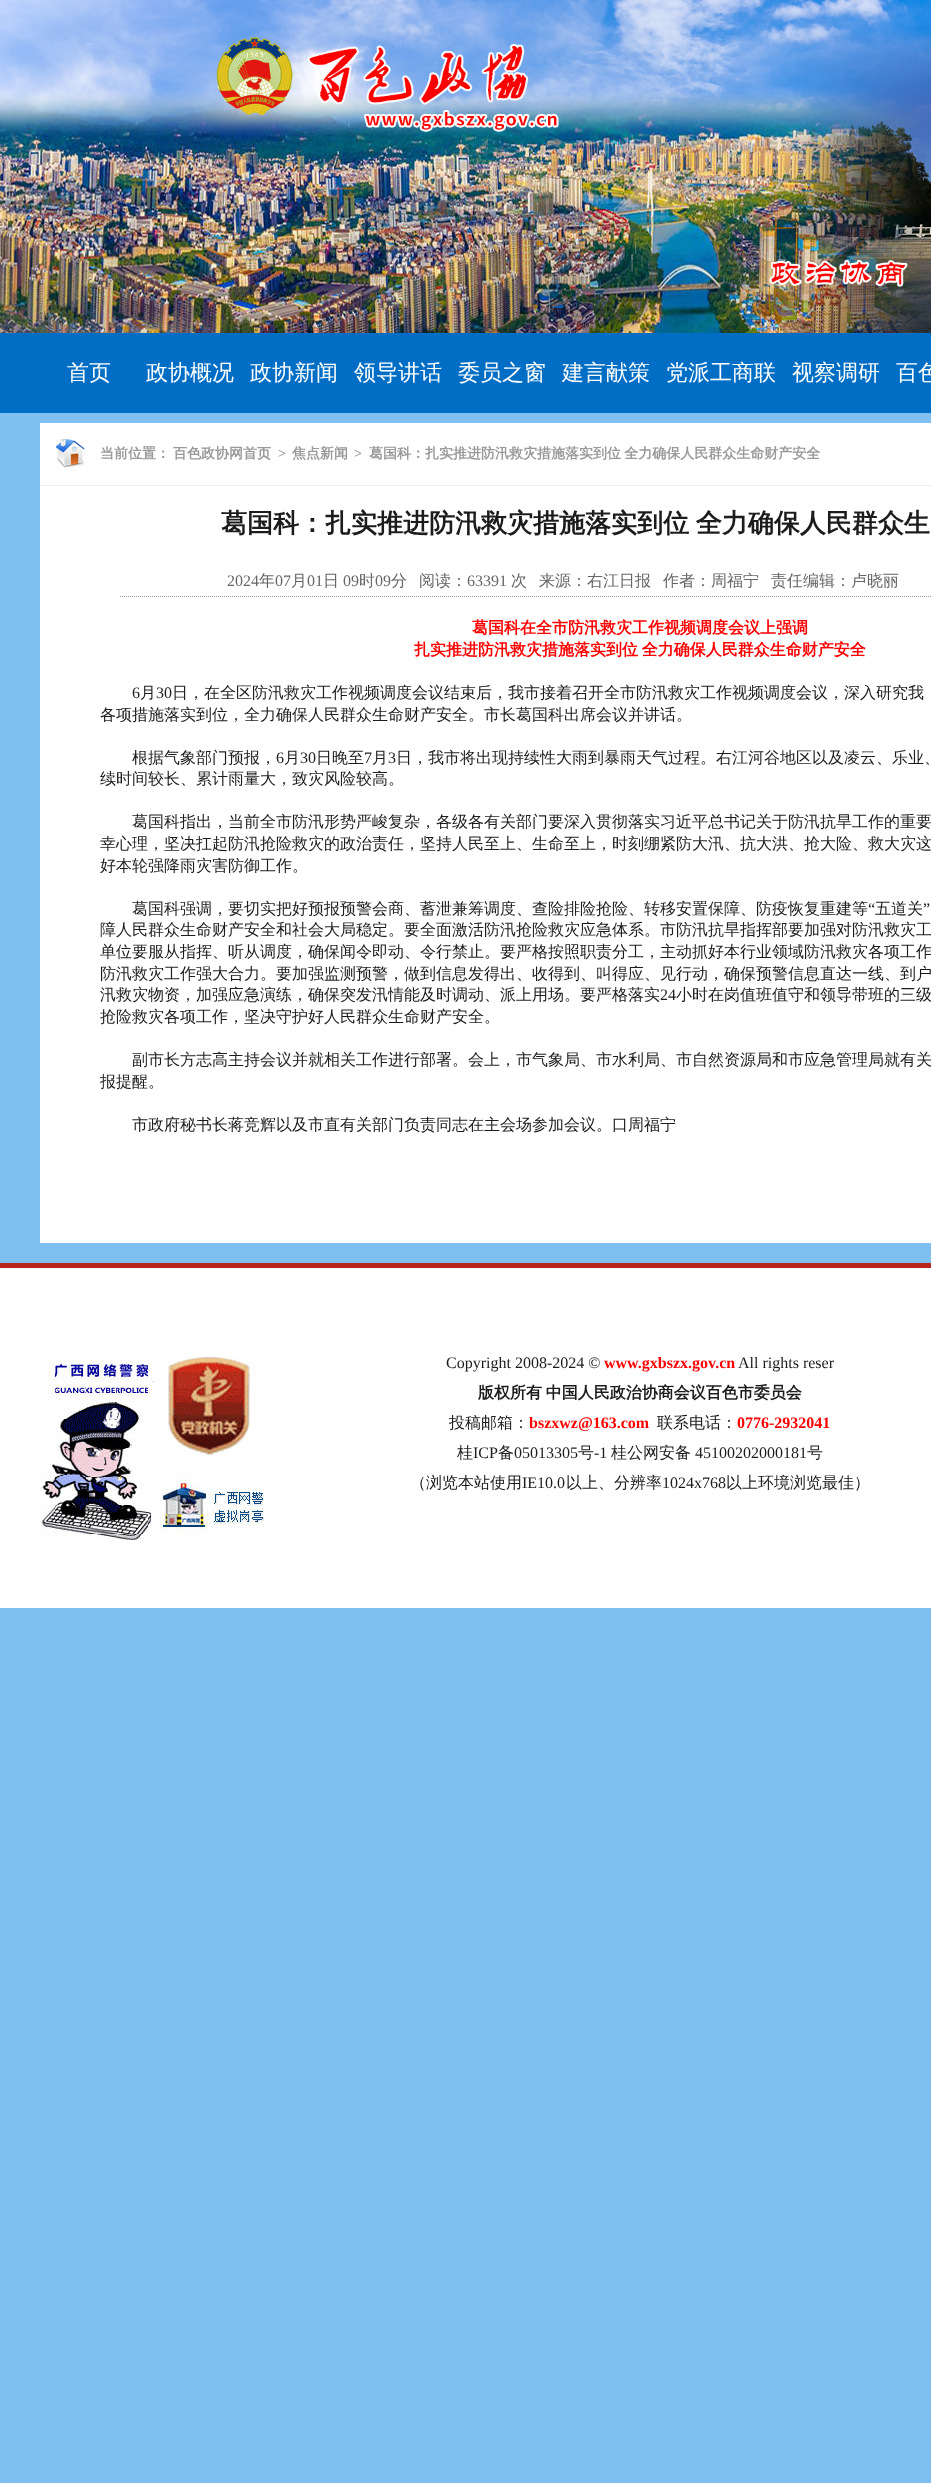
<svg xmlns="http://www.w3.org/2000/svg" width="931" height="2483">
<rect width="100%" height="100%" fill="#80c0f0"/>
<image x="0" y="0" width="931" height="333" href="media/1.png"/>
<rect y="333" width="931" height="80" fill="#016ec5"/>
<text x="67" y="380" style="font-family:WenQuanYi Zen Hei;font-size:22px;font-weight:500;fill:#fff">首页</text>
<text x="146" y="380" style="font-family:WenQuanYi Zen Hei;font-size:22px;font-weight:500;fill:#fff">政协概况</text>
<text x="250" y="380" style="font-family:WenQuanYi Zen Hei;font-size:22px;font-weight:500;fill:#fff">政协新闻</text>
<text x="354" y="380" style="font-family:WenQuanYi Zen Hei;font-size:22px;font-weight:500;fill:#fff">领导讲话</text>
<text x="458" y="380" style="font-family:WenQuanYi Zen Hei;font-size:22px;font-weight:500;fill:#fff">委员之窗</text>
<text x="562" y="380" style="font-family:WenQuanYi Zen Hei;font-size:22px;font-weight:500;fill:#fff">建言献策</text>
<text x="666" y="380" style="font-family:WenQuanYi Zen Hei;font-size:22px;font-weight:500;fill:#fff">党派工商联</text>
<text x="792" y="380" style="font-family:WenQuanYi Zen Hei;font-size:22px;font-weight:500;fill:#fff">视察调研</text>
<text x="896" y="380" style="font-family:WenQuanYi Zen Hei;font-size:22px;font-weight:500;fill:#fff">百色</text>
<rect x="40" y="423" width="891" height="62" fill="#fff"/>
<image x="56" y="439" width="29" height="29" href="media/2.png"/>
<rect x="40" y="485" width="891" height="1" fill="#ececec"/>
<text x="100" y="458" style="font-family:WenQuanYi Zen Hei;font-size:14px;font-weight:bold;fill:#999">当前位置：</text>
<text x="173" y="458" style="font-family:WenQuanYi Zen Hei;font-size:14px;font-weight:bold;fill:#999">百色政协网首页</text>
<text x="278" y="458" style="font-family:Liberation Serif;font-size:14px;font-weight:bold;fill:#999">&gt;</text>
<text x="292" y="458" style="font-family:WenQuanYi Zen Hei;font-size:14px;font-weight:bold;fill:#999">焦点新闻</text>
<text x="354" y="458" style="font-family:Liberation Serif;font-size:14px;font-weight:bold;fill:#999">&gt;</text>
<text x="369" y="458" word-spacing="-1" style="font-family:WenQuanYi Zen Hei;font-size:14px;font-weight:bold;fill:#999">葛国科：扎实推进防汛救灾措施落实到位 全力确保人民群众生命财产安全</text>
<rect x="40" y="486" width="891" height="757" fill="#fff"/>
<text x="221" y="532" word-spacing="-1" style="font-family:WenQuanYi Zen Hei;font-size:26px;font-weight:bold;fill:#1c1c1c">葛国科：扎实推进防汛救灾措施落实到位 全力确保人民群众生</text>
<path d="M120 596.5h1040" fill="none" stroke="#999" stroke-dasharray="1 1"/>
<text x="227" y="586" style="font-family:Liberation Serif;font-size:16px;fill:#666">2024</text>
<text x="259" y="586" style="font-family:WenQuanYi Zen Hei;font-size:16px;font-weight:500;fill:#666">年</text>
<text x="275" y="586" style="font-family:Liberation Serif;font-size:16px;fill:#666">07</text>
<text x="291" y="586" style="font-family:WenQuanYi Zen Hei;font-size:16px;font-weight:500;fill:#666">月</text>
<text x="307" y="586" style="font-family:Liberation Serif;font-size:16px;fill:#666">01</text>
<text x="323" y="586" style="font-family:WenQuanYi Zen Hei;font-size:16px;font-weight:500;fill:#666">日</text>
<text x="343" y="586" style="font-family:Liberation Serif;font-size:16px;fill:#666">09</text>
<text x="359" y="586" style="font-family:WenQuanYi Zen Hei;font-size:16px;font-weight:500;fill:#666">时</text>
<text x="375" y="586" style="font-family:Liberation Serif;font-size:16px;fill:#666">09</text>
<text x="391" y="586" style="font-family:WenQuanYi Zen Hei;font-size:16px;font-weight:500;fill:#666">分</text>
<text x="419" y="586" style="font-family:WenQuanYi Zen Hei;font-size:16px;font-weight:500;fill:#666">阅读：</text>
<text x="467" y="586" style="font-family:Liberation Serif;font-size:16px;fill:#666">63391</text>
<text x="511" y="586" style="font-family:WenQuanYi Zen Hei;font-size:16px;font-weight:500;fill:#666">次</text>
<text x="539" y="586" style="font-family:WenQuanYi Zen Hei;font-size:16px;font-weight:500;fill:#666">来源：右江日报</text>
<text x="663" y="586" style="font-family:WenQuanYi Zen Hei;font-size:16px;font-weight:500;fill:#666">作者：周福宁</text>
<text x="771" y="586" style="font-family:WenQuanYi Zen Hei;font-size:16px;font-weight:500;fill:#666">责任编辑：卢晓丽</text>
<text x="472" y="633" style="font-family:WenQuanYi Zen Hei;font-size:16px;font-weight:bold;fill:#f00">葛国科在全市防汛救灾工作视频调度会议上强调</text>
<text x="414" y="655" word-spacing="-1" style="font-family:WenQuanYi Zen Hei;font-size:16px;font-weight:bold;fill:#f00">扎实推进防汛救灾措施落实到位 全力确保人民群众生命财产安全</text>
<text x="132" y="698" style="font-family:Liberation Serif;font-size:16px;fill:#1c1c1c">6</text>
<text x="140" y="698" style="font-family:WenQuanYi Zen Hei;font-size:16px;font-weight:500;fill:#1c1c1c">月</text>
<text x="156" y="698" style="font-family:Liberation Serif;font-size:16px;fill:#1c1c1c">30</text>
<text x="172" y="698" style="font-family:WenQuanYi Zen Hei;font-size:16px;font-weight:500;fill:#1c1c1c">日，在全区防汛救灾工作视频调度会议结束后，我市接着召开全市防汛救灾工作视频调度会议，深入研究我</text>
<text x="100" y="720" style="font-family:WenQuanYi Zen Hei;font-size:16px;font-weight:500;fill:#1c1c1c">各项措施落实到位，全力确保人民群众生命财产安全。市长葛国科出席会议并讲话。</text>
<text x="132" y="763" style="font-family:WenQuanYi Zen Hei;font-size:16px;font-weight:500;fill:#1c1c1c">根据气象部门预报，</text>
<text x="276" y="763" style="font-family:Liberation Serif;font-size:16px;fill:#1c1c1c">6</text>
<text x="284" y="763" style="font-family:WenQuanYi Zen Hei;font-size:16px;font-weight:500;fill:#1c1c1c">月</text>
<text x="300" y="763" style="font-family:Liberation Serif;font-size:16px;fill:#1c1c1c">30</text>
<text x="316" y="763" style="font-family:WenQuanYi Zen Hei;font-size:16px;font-weight:500;fill:#1c1c1c">日晚至</text>
<text x="364" y="763" style="font-family:Liberation Serif;font-size:16px;fill:#1c1c1c">7</text>
<text x="372" y="763" style="font-family:WenQuanYi Zen Hei;font-size:16px;font-weight:500;fill:#1c1c1c">月</text>
<text x="388" y="763" style="font-family:Liberation Serif;font-size:16px;fill:#1c1c1c">3</text>
<text x="396" y="763" style="font-family:WenQuanYi Zen Hei;font-size:16px;font-weight:500;fill:#1c1c1c">日，我市将出现持续性大雨到暴雨天气过程。右江河谷地区以及凌云、乐业、</text>
<text x="100" y="784" style="font-family:WenQuanYi Zen Hei;font-size:16px;font-weight:500;fill:#1c1c1c">续时间较长、累计雨量大，致灾风险较高。</text>
<text x="132" y="827" style="font-family:WenQuanYi Zen Hei;font-size:16px;font-weight:500;fill:#1c1c1c">葛国科指出，当前全市防汛形势严峻复杂，各级各有关部门要深入贯彻落实习近平总书记关于防汛抗旱工作的重要</text>
<text x="100" y="849" style="font-family:WenQuanYi Zen Hei;font-size:16px;font-weight:500;fill:#1c1c1c">幸心理，坚决扛起防汛抢险救灾的政治责任，坚持人民至上、生命至上，时刻绷紧防大汛、抗大洪、抢大险、救大灾这</text>
<text x="100" y="871" style="font-family:WenQuanYi Zen Hei;font-size:16px;font-weight:500;fill:#1c1c1c">好本轮强降雨灾害防御工作。</text>
<text x="132" y="914" style="font-family:WenQuanYi Zen Hei;font-size:16px;font-weight:500;fill:#1c1c1c">葛国科强调，要切实把好预报预警会商、蓄泄兼筹调度、查险排险抢险、转移安置保障、防疫恢复重建等</text>
<text x="868" y="914" style="font-family:Liberation Serif;font-size:16px;fill:#1c1c1c">“</text>
<text x="875" y="914" style="font-family:WenQuanYi Zen Hei;font-size:16px;font-weight:500;fill:#1c1c1c">五道关</text>
<text x="923" y="914" style="font-family:Liberation Serif;font-size:16px;fill:#1c1c1c">”</text>
<text x="100" y="935" style="font-family:WenQuanYi Zen Hei;font-size:16px;font-weight:500;fill:#1c1c1c">障人民群众生命财产安全和社会大局稳定。要全面激活防汛抢险救灾应急体系。市防汛抗旱指挥部要加强对防汛救灾工</text>
<text x="100" y="957" style="font-family:WenQuanYi Zen Hei;font-size:16px;font-weight:500;fill:#1c1c1c">单位要服从指挥、听从调度，确保闻令即动、令行禁止。要严格按照职责分工，主动抓好本行业领域防汛救灾各项工作</text>
<text x="100" y="979" style="font-family:WenQuanYi Zen Hei;font-size:16px;font-weight:500;fill:#1c1c1c">防汛救灾工作强大合力。要加强监测预警，做到信息发得出、收得到、叫得应、见行动，确保预警信息直达一线、到户</text>
<text x="100" y="1000" style="font-family:WenQuanYi Zen Hei;font-size:16px;font-weight:500;fill:#1c1c1c">汛救灾物资，加强应急演练，确保突发汛情能及时调动、派上用场。要严格落实</text>
<text x="660" y="1000" style="font-family:Liberation Serif;font-size:16px;fill:#1c1c1c">24</text>
<text x="676" y="1000" style="font-family:WenQuanYi Zen Hei;font-size:16px;font-weight:500;fill:#1c1c1c">小时在岗值班值守和领导带班的三级</text>
<text x="100" y="1022" style="font-family:WenQuanYi Zen Hei;font-size:16px;font-weight:500;fill:#1c1c1c">抢险救灾各项工作，坚决守护好人民群众生命财产安全。</text>
<text x="132" y="1065" style="font-family:WenQuanYi Zen Hei;font-size:16px;font-weight:500;fill:#1c1c1c">副市长方志高主持会议并就相关工作进行部署。会上，市气象局、市水利局、市自然资源局和市应急管理局就有关</text>
<text x="100" y="1087" style="font-family:WenQuanYi Zen Hei;font-size:16px;font-weight:500;fill:#1c1c1c">报提醒。</text>
<text x="132" y="1130" style="font-family:WenQuanYi Zen Hei;font-size:16px;font-weight:500;fill:#1c1c1c">市政府秘书长蒋竞辉以及市直有关部门负责同志在主会场参加会议。口周福宁</text>
<rect y="1268" width="931" height="340" fill="#fff"/>
<rect y="1263" width="931" height="5" fill="#ba261a"/>
<image x="40" y="1356" width="224" height="184" href="media/3.png"/>
<text x="446" y="1368" style="font-family:Liberation Serif;font-size:16px;fill:#1c1c1c">Copyright 2008-2024 ©</text>
<text x="604" y="1368" style="font-family:Liberation Serif;font-size:16px;font-weight:bold;fill:#f00">www.gxbszx.gov.cn</text>
<text x="738" y="1368" style="font-family:Liberation Serif;font-size:16px;fill:#1c1c1c">All rights reser</text>
<text x="478" y="1398" word-spacing="-1" style="font-family:WenQuanYi Zen Hei;font-size:16px;font-weight:bold;fill:#1c1c1c">版权所有 中国人民政治协商会议百色市委员会</text>
<text x="449" y="1428" style="font-family:WenQuanYi Zen Hei;font-size:16px;font-weight:500;fill:#1c1c1c">投稿邮箱：</text>
<text x="529" y="1428" style="font-family:Liberation Serif;font-size:16px;font-weight:bold;fill:#f00">bszxwz@163.com</text>
<text x="657" y="1428" style="font-family:WenQuanYi Zen Hei;font-size:16px;font-weight:500;fill:#1c1c1c">联系电话：</text>
<text x="737" y="1428" style="font-family:Liberation Serif;font-size:16px;font-weight:bold;fill:#f00">0776-2932041</text>
<text x="457" y="1458" style="font-family:WenQuanYi Zen Hei;font-size:16px;font-weight:500;fill:#1c1c1c">桂</text>
<text x="473" y="1458" style="font-family:Liberation Serif;font-size:16px;fill:#1c1c1c">ICP</text>
<text x="498" y="1458" style="font-family:WenQuanYi Zen Hei;font-size:16px;font-weight:500;fill:#1c1c1c">备</text>
<text x="514" y="1458" style="font-family:Liberation Serif;font-size:16px;fill:#1c1c1c">05013305</text>
<text x="578" y="1458" style="font-family:WenQuanYi Zen Hei;font-size:16px;font-weight:500;fill:#1c1c1c">号</text>
<text x="594" y="1458" style="font-family:Liberation Serif;font-size:16px;fill:#1c1c1c">-1</text>
<text x="611" y="1458" style="font-family:WenQuanYi Zen Hei;font-size:16px;font-weight:500;fill:#1c1c1c">桂公网安备</text>
<text x="695" y="1458" style="font-family:Liberation Serif;font-size:16px;fill:#1c1c1c">45100202000181</text>
<text x="807" y="1458" style="font-family:WenQuanYi Zen Hei;font-size:16px;font-weight:500;fill:#1c1c1c">号</text>
<text x="410" y="1488" style="font-family:WenQuanYi Zen Hei;font-size:16px;font-weight:500;fill:#1c1c1c">（浏览本站使用</text>
<text x="522" y="1488" style="font-family:Liberation Serif;font-size:16px;fill:#1c1c1c">IE10.0</text>
<text x="566" y="1488" style="font-family:WenQuanYi Zen Hei;font-size:16px;font-weight:500;fill:#1c1c1c">以上、分辨率</text>
<text x="662" y="1488" style="font-family:Liberation Serif;font-size:16px;fill:#1c1c1c">1024x768</text>
<text x="726" y="1488" style="font-family:WenQuanYi Zen Hei;font-size:16px;font-weight:500;fill:#1c1c1c">以上环境浏览最佳）</text>
</svg>
